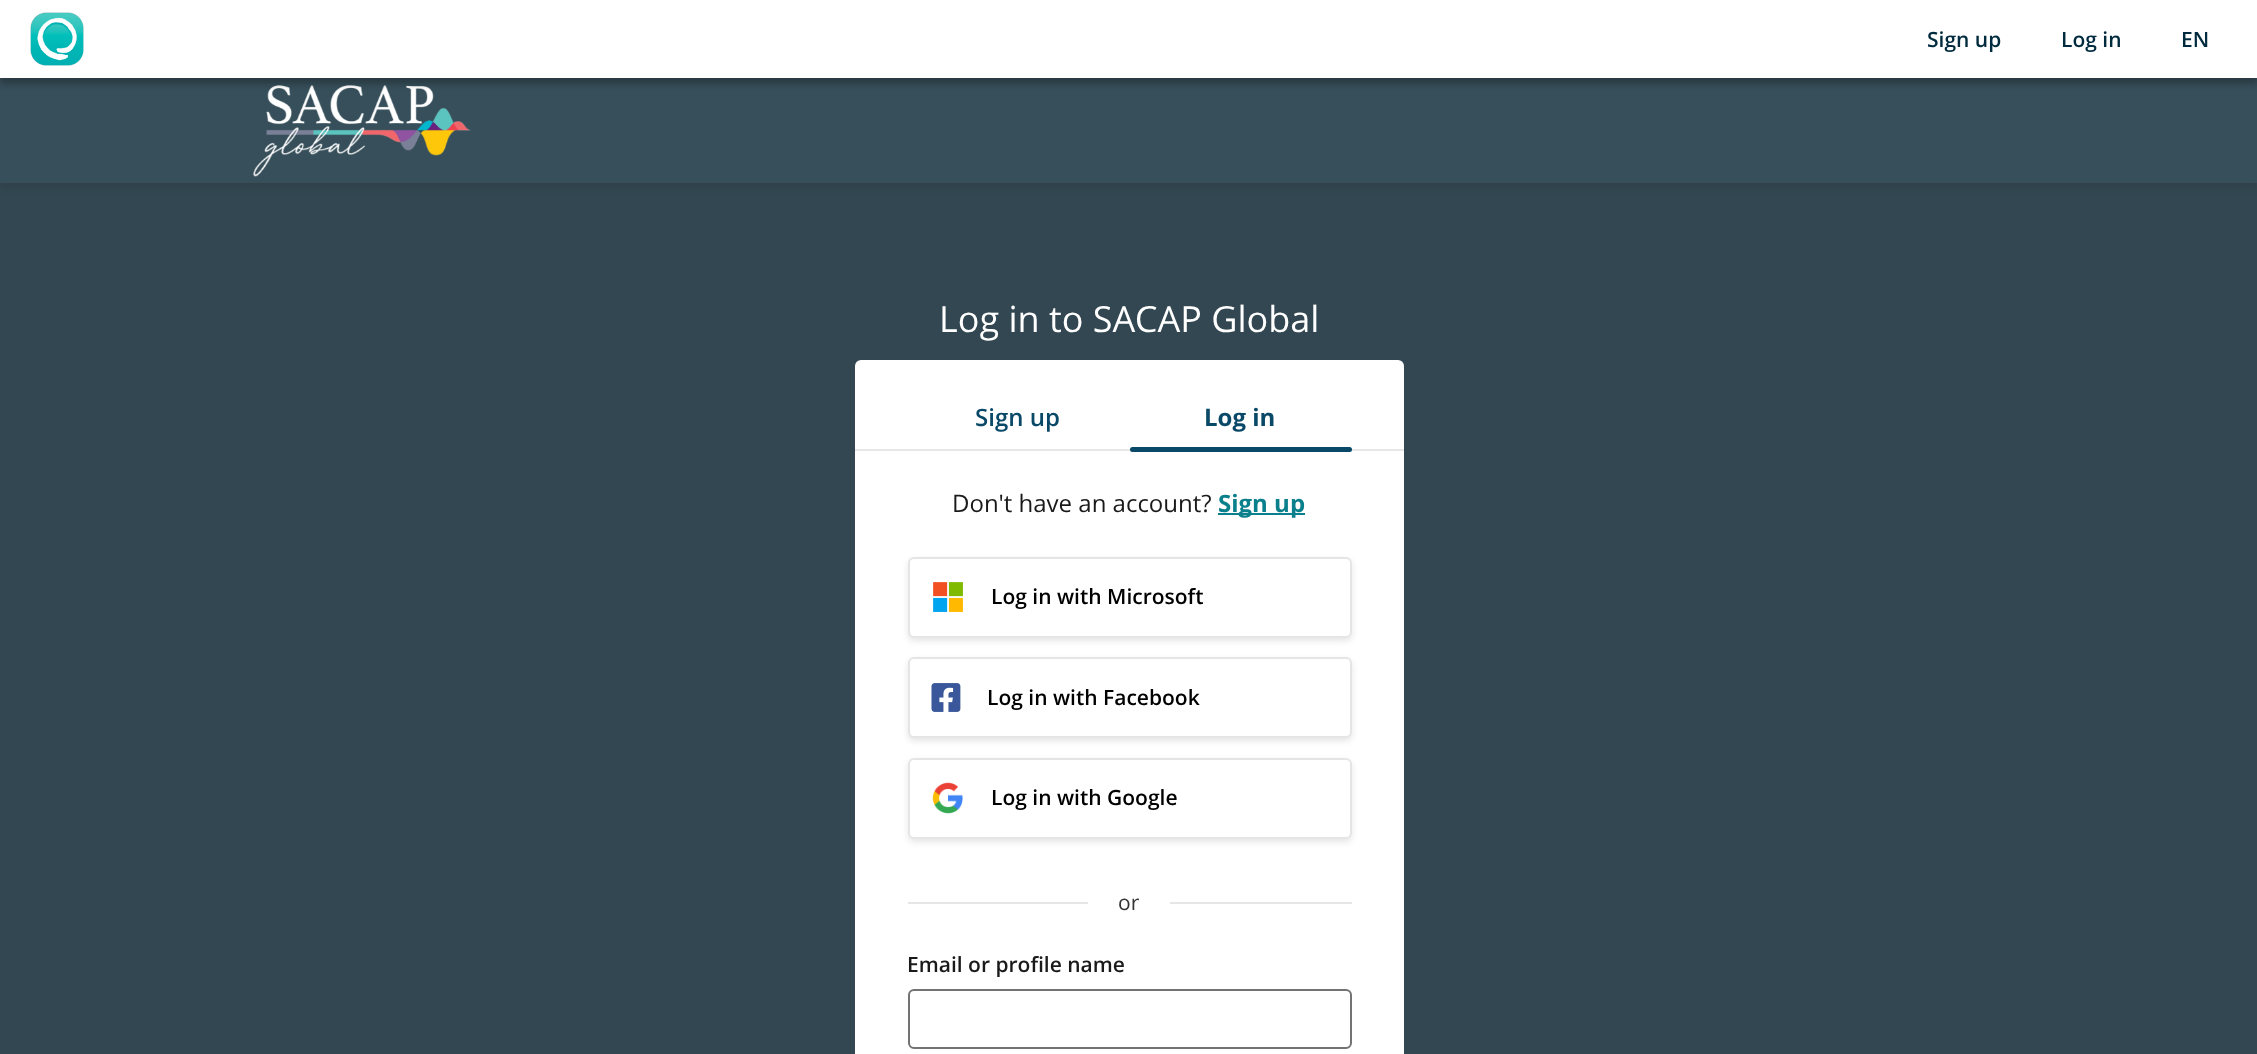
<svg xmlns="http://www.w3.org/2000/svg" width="2257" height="1054">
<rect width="100%" height="100%" fill="#324751"/>
<rect y="78" width="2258" height="105" fill="#2a2a2a66" filter="blur(6px)"/>
<rect y="78" width="2257" height="105" fill="#374f5a"/>
<image x="253" y="85" width="218" height="92" href="media/2.png"/>
<rect y="6" width="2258" height="78" fill="#00000040" filter="blur(3px)"/>
<rect width="2257" height="78" fill="#fff"/>
<image x="30" y="12" width="54" height="54" href="media/1.png"/>
<text x="1927" y="47" style="font-family:Open Sans;font-size:21px;font-weight:600;fill:#002b3e">Sign up</text>
<text x="2061" y="47" style="font-family:Open Sans;font-size:21px;font-weight:600;fill:#002b3e">Log in</text>
<text x="2181" y="47" style="font-family:Open Sans;font-size:21px;font-weight:600;fill:#002b3e">EN</text>
<text x="939" y="332" style="font-family:Open Sans;font-size:36px;fill:#fff">Log in to SACAP Global</text>
<rect x="855" y="360" width="549" height="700" rx="6" fill="#fff"/>
<rect x="855" y="449" width="549" height="2" fill="#e6e6e6"/>
<text x="975" y="426" style="font-family:Open Sans;font-size:24px;font-weight:600;fill:#094967">Sign up</text>
<text x="1204" y="426" style="font-family:Open Sans;font-size:24px;font-weight:bold;fill:#094967">Log in</text>
<rect x="1130" y="447" width="222" height="5" rx="2.5" fill="#094967"/>
<text x="952" y="512" style="font-family:Open Sans;font-size:24px;fill:#1a1a1a">Don't have an account?</text>
<rect x="1218" y="513" width="87" height="2" fill="#0b808d"/>
<text x="1218" y="512" style="font-family:Open Sans;font-size:24px;font-weight:bold;fill:#0b808d">Sign up</text>
<rect x="908" y="560" width="444" height="81" rx="6" fill="#0000001a" filter="blur(3px)"/>
<rect x="908" y="557" width="444" height="81" rx="6" fill="#fff"/>
<rect x="909" y="558" width="442" height="79" rx="5" fill="none" stroke="#0000001a" stroke-width="2"/>
<image x="933" y="582" width="30" height="30" href="media/3.png"/>
<text x="991" y="604" style="font-family:Open Sans;font-size:21px;font-weight:600;fill:#000">Log in with Microsoft</text>
<rect x="908" y="660" width="444" height="81" rx="6" fill="#0000001a" filter="blur(3px)"/>
<rect x="909" y="658" width="442" height="79" rx="5" fill="#fff" stroke="#e5e5e5" stroke-width="2"/>
<image x="931" y="683" width="30" height="29" href="media/4.png"/>
<text x="987" y="705" style="font-family:Open Sans;font-size:21px;font-weight:600;fill:#000">Log in with Facebook</text>
<rect x="908" y="761" width="444" height="81" rx="6" fill="#0000001a" filter="blur(3px)"/>
<rect x="908" y="758" width="444" height="81" rx="6" fill="#fff"/>
<rect x="909" y="759" width="442" height="79" rx="5" fill="none" stroke="#0000001a" stroke-width="2"/>
<image x="932" y="782" width="31" height="32" href="media/5.png"/>
<text x="991" y="805" style="font-family:Open Sans;font-size:21px;font-weight:600;fill:#000">Log in with Google</text>
<rect x="908" y="902" width="444" height="2" fill="#e6e6e6"/>
<rect x="1088" y="902" width="82" height="2" fill="#fff"/>
<text x="1118" y="910" style="font-family:Open Sans;font-size:21px;fill:#333">or</text>
<text x="907" y="972" style="font-family:Open Sans;font-size:21px;font-weight:600;fill:#1a1a1a">Email or profile name</text>
<rect x="909" y="990" width="442" height="58" rx="5" fill="none" stroke="#737373" stroke-width="2"/>
</svg>
